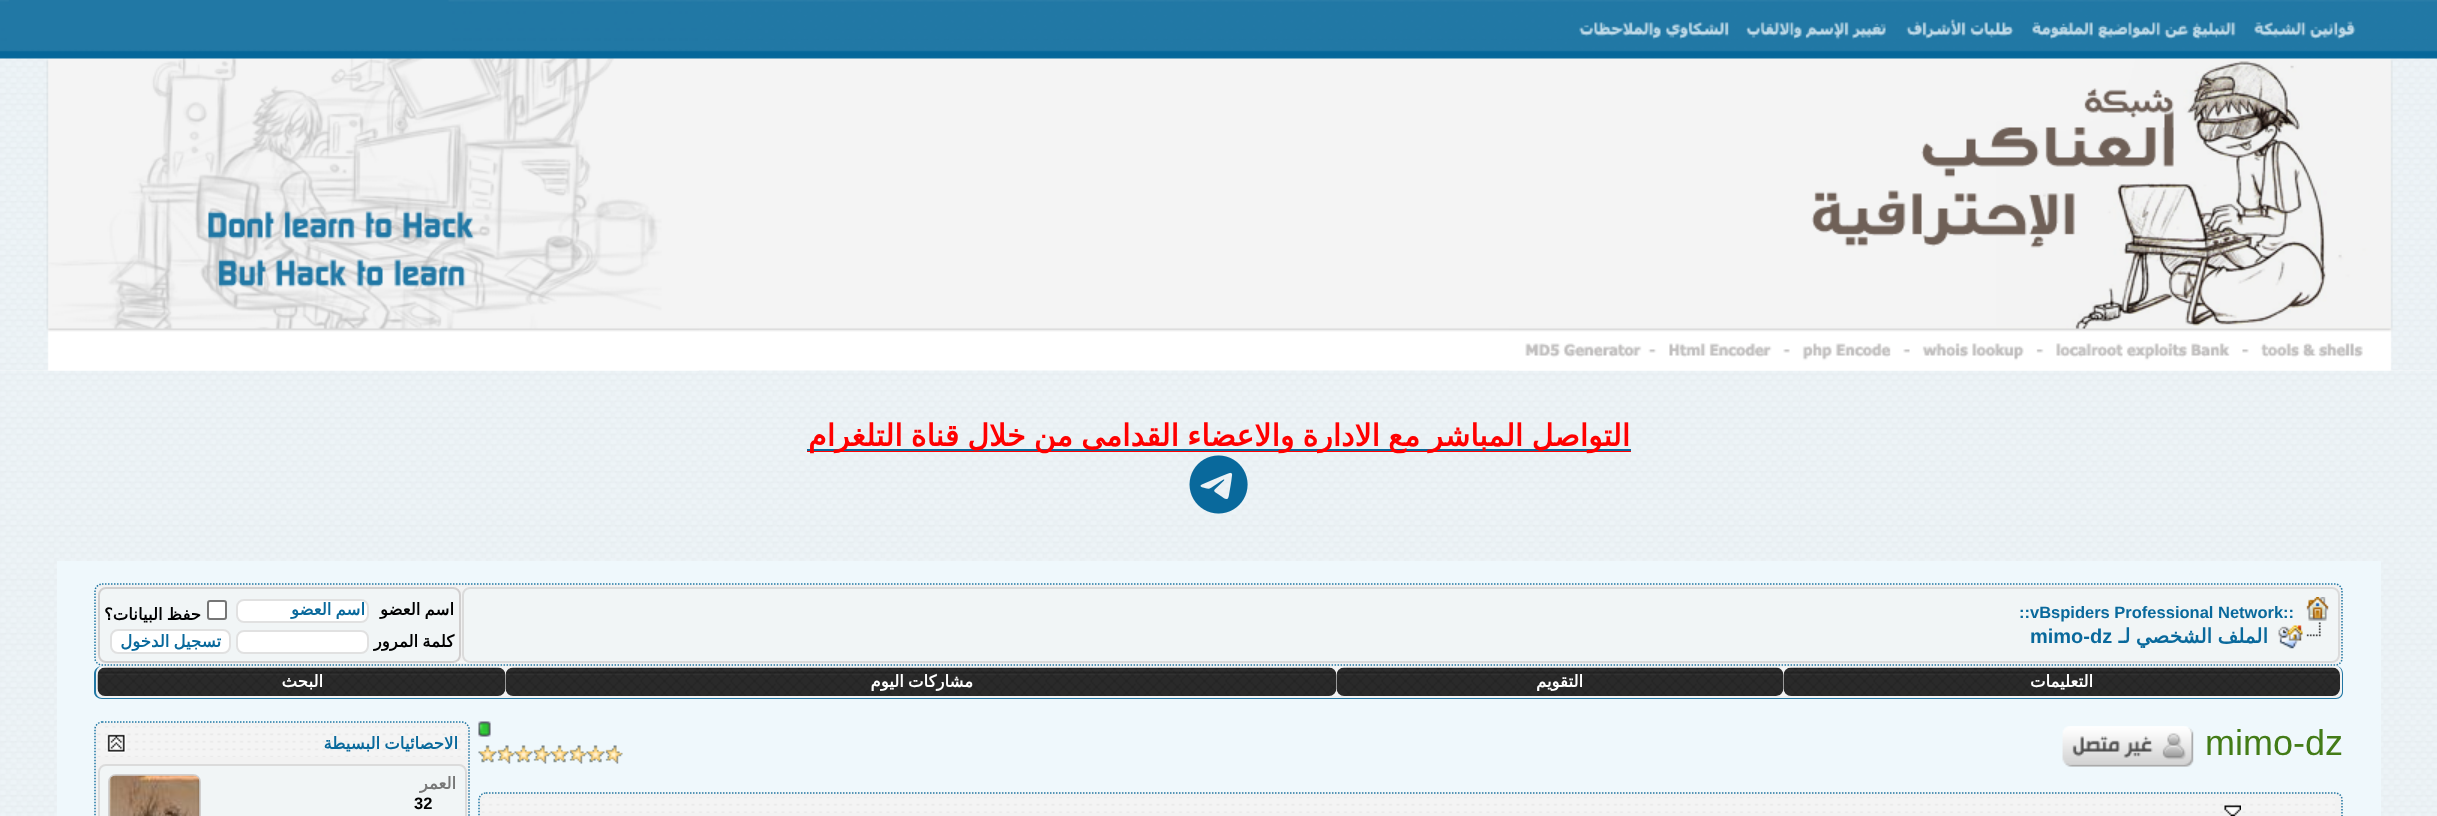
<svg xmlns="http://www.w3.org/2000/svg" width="2437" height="816">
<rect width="100%" height="100%" fill="#fff"/>
<image x="0" y="370" width="2437" height="446" href="media/1.png"/>
<image x="0" y="0" width="2437" height="371" href="media/2.png"/>
<image x="1509" y="58" width="928" height="313" href="media/3.png"/>
<image x="2254" y="21" width="102" height="19" href="media/4.png"/>
<image x="2032" y="22" width="204" height="18" href="media/5.png"/>
<image x="1906" y="19" width="108" height="20" href="media/6.png"/>
<image x="1746" y="22" width="140" height="18" href="media/7.png"/>
<image x="1579" y="22" width="150" height="18" href="media/8.png"/>
<image x="0" y="0" width="699" height="371" href="media/9.png"/>
<rect x="807" y="451" width="824" height="1" fill="#f00"/>
<rect x="807" y="449" width="824" height="2" fill="#09699c"/>
<text x="1630" y="446" word-spacing="-1.25" style="font-family:DejaVu Sans;font-size:30px;font-weight:bold;direction:rtl;fill:#f00">التواصل المباشر مع الادارة والاعضاء القدامى من خلال قناة التلغرام</text>
<image x="1189" y="455" width="59" height="59" href="media/10.png"/>
<rect x="57" y="561" width="2324" height="255" fill="#eff8fc"/>
<rect x="95" y="584" width="2248" height="82" rx="8" fill="#f2f2f2"/>
<path d="M102 584h2233.5c3.5 0 6.5 3.5 6.5 7v67.5c0 3.5-3 6.5-6.5 6.5h-2233.5c-3.5 0-7-3-7-6.5v-67.5c0-3.5 3.5-7 7-7z" fill="none" stroke="#2178a5" stroke-width="1.5" stroke-dasharray="1.5 1.5"/>
<rect x="463" y="588" width="1876" height="74" rx="7" fill="#f1f5f6" stroke="#dbdbdb" stroke-width="2"/>
<image x="2306" y="597" width="23" height="24" href="media/11.png"/>
<text x="2019" y="618" style="font-family:Liberation Sans;font-size:16.5px;font-weight:bold;fill:#09699c">::vBspiders Professional Network::</text>
<image x="2278" y="622" width="43" height="27" href="media/12.png"/>
<text x="2268" y="643" word-spacing="-1" style="font-family:DejaVu Sans;font-size:20px;font-weight:bold;direction:rtl;fill:#09699c">الملف الشخصي لـ</text>
<text x="2030" y="643" style="font-family:Liberation Sans;font-size:20px;font-weight:bold;fill:#09699c">mimo-dz</text>
<rect x="99" y="588" width="361" height="74" rx="7" fill="#f1f5f6" stroke="#d1cfcf" stroke-width="2"/>
<text x="454" y="615" word-spacing="-1" style="font-family:DejaVu Sans;font-size:16.5px;font-weight:bold;direction:rtl;fill:#000">اسم العضو</text>
<rect x="237" y="600" width="131" height="22" rx="7" fill="#fff" stroke="#e1e1e1" stroke-width="2"/>
<text x="365" y="615" word-spacing="-1" style="font-family:DejaVu Sans;font-size:16.5px;font-weight:bold;direction:rtl;fill:#09699c">اسم العضو</text>
<rect x="208" y="601" width="18" height="18" rx="2" fill="#fff" stroke="#767676" stroke-width="2"/>
<text x="201" y="620" word-spacing="-1" style="font-family:DejaVu Sans;font-size:16.5px;font-weight:bold;direction:rtl;fill:#000">حفظ البيانات؟</text>
<text x="454" y="647" word-spacing="-1" style="font-family:DejaVu Sans;font-size:16.5px;font-weight:bold;direction:rtl;fill:#000">كلمة المرور</text>
<rect x="237" y="631" width="131" height="22" rx="7" fill="#fff" stroke="#e1e1e1" stroke-width="2"/>
<rect x="111" y="630" width="119" height="23" rx="7" fill="#fff" stroke="#e1e1e1" stroke-width="2"/>
<text x="221" y="647" word-spacing="-1" style="font-family:DejaVu Sans;font-size:16.5px;font-weight:bold;direction:rtl;fill:#09699c">تسجيل الدخول</text>
<rect x="95" y="666" width="2248" height="33" rx="8" fill="#f2f2f2"/>
<path d="M102 666h2234c4 0 7 3 7 8v18c0 4-3 7-7 7h-2234c-4 0-8-3-8-7v-18c0-5 4-8 8-8zm0 0h2234c3 0 6 3 6 8v18c0 3-3 6-6 6h-2234c-3 0-6-3-6-6v-18c0-5 3-8 6-8z" fill="#2178a5" fill-rule="evenodd"/>
<image x="1783" y="667" width="557" height="29" href="media/13.png"/>
<text x="2093" y="687" style="font-family:DejaVu Sans;font-size:16.5px;font-weight:bold;direction:rtl;fill:#fff">التعليمات</text>
<image x="1336" y="667" width="448" height="29" href="media/14.png"/>
<text x="1583" y="687" style="font-family:DejaVu Sans;font-size:16.5px;font-weight:bold;direction:rtl;fill:#fff">التقويم</text>
<image x="505" y="667" width="832" height="29" href="media/15.png"/>
<text x="973" y="687" word-spacing="-1" style="font-family:DejaVu Sans;font-size:16.5px;font-weight:bold;direction:rtl;fill:#fff">مشاركات اليوم</text>
<image x="97" y="667" width="409" height="29" href="media/16.png"/>
<text x="323" y="687" style="font-family:DejaVu Sans;font-size:16.5px;font-weight:bold;direction:rtl;fill:#fff">البحث</text>
<text x="2205" y="755" style="font-family:Liberation Sans;font-size:36px;fill:#437c17">mimo-dz</text>
<image x="2062" y="726" width="132" height="41" href="media/17.png"/>
<image x="478" y="721" width="13" height="16" href="media/18.png"/>
<image x="605" y="745" width="18" height="19" href="media/19.png"/>
<image x="586" y="745" width="19" height="18" href="media/20.png"/>
<image x="569" y="745" width="18" height="19" href="media/21.png"/>
<image x="550" y="745" width="19" height="18" href="media/20.png"/>
<image x="533" y="745" width="18" height="19" href="media/21.png"/>
<image x="514" y="745" width="19" height="18" href="media/22.png"/>
<image x="497" y="745" width="18" height="19" href="media/23.png"/>
<image x="478" y="745" width="19" height="18" href="media/24.png"/>
<rect x="479" y="792" width="1864" height="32" rx="8" fill="#f2f2f2"/>
<path d="M486 793h1849.5c3.5 0 6.5 3 6.5 6.5v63c0 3.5-3 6.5-6.5 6.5h-1849.5c-3.5 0-7-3-7-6.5v-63c0-3.5 3.5-6.5 7-6.5z" fill="none" stroke="#2178a5" stroke-width="1.5" stroke-dasharray="1.5 1.5"/>
<image x="482" y="797" width="1853" height="16" href="media/25.png"/>
<image x="2224" y="805" width="17" height="11" href="media/26.png"/>
<rect x="95" y="722" width="375" height="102" rx="8" fill="#f2f2f2"/>
<path d="M102 722h360c3.5 0 7 3.5 7 7v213c0 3.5-3.5 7-7 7h-360c-3.5 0-7-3.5-7-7v-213c0-3.5 3.5-7 7-7z" fill="none" stroke="#2178a5" stroke-width="1.5" stroke-dasharray="1.5 1.5"/>
<image x="97" y="726" width="370" height="31" href="media/27.png"/>
<text x="458" y="749" word-spacing="-1" style="font-family:DejaVu Sans;font-size:16.5px;font-weight:bold;direction:rtl;fill:#09699c">الاحصائيات البسيطة</text>
<image x="106" y="733" width="20" height="20" href="media/28.png"/>
<rect x="99" y="765" width="367" height="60" rx="7" fill="#f1f5f6" stroke="#dbdbdb" stroke-width="2"/>
<text x="456" y="789" style="font-family:DejaVu Sans;font-size:16.5px;font-weight:bold;direction:rtl;fill:#777">العمر</text>
<text x="414" y="809" style="font-family:Liberation Sans;font-size:16.5px;font-weight:bold;fill:#000">32</text>
<rect x="109" y="775" width="91" height="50" rx="7" fill="none" stroke="#d1cfcf" stroke-width="2"/>
<image x="109" y="775" width="91" height="41" href="media/29.png"/>
</svg>
